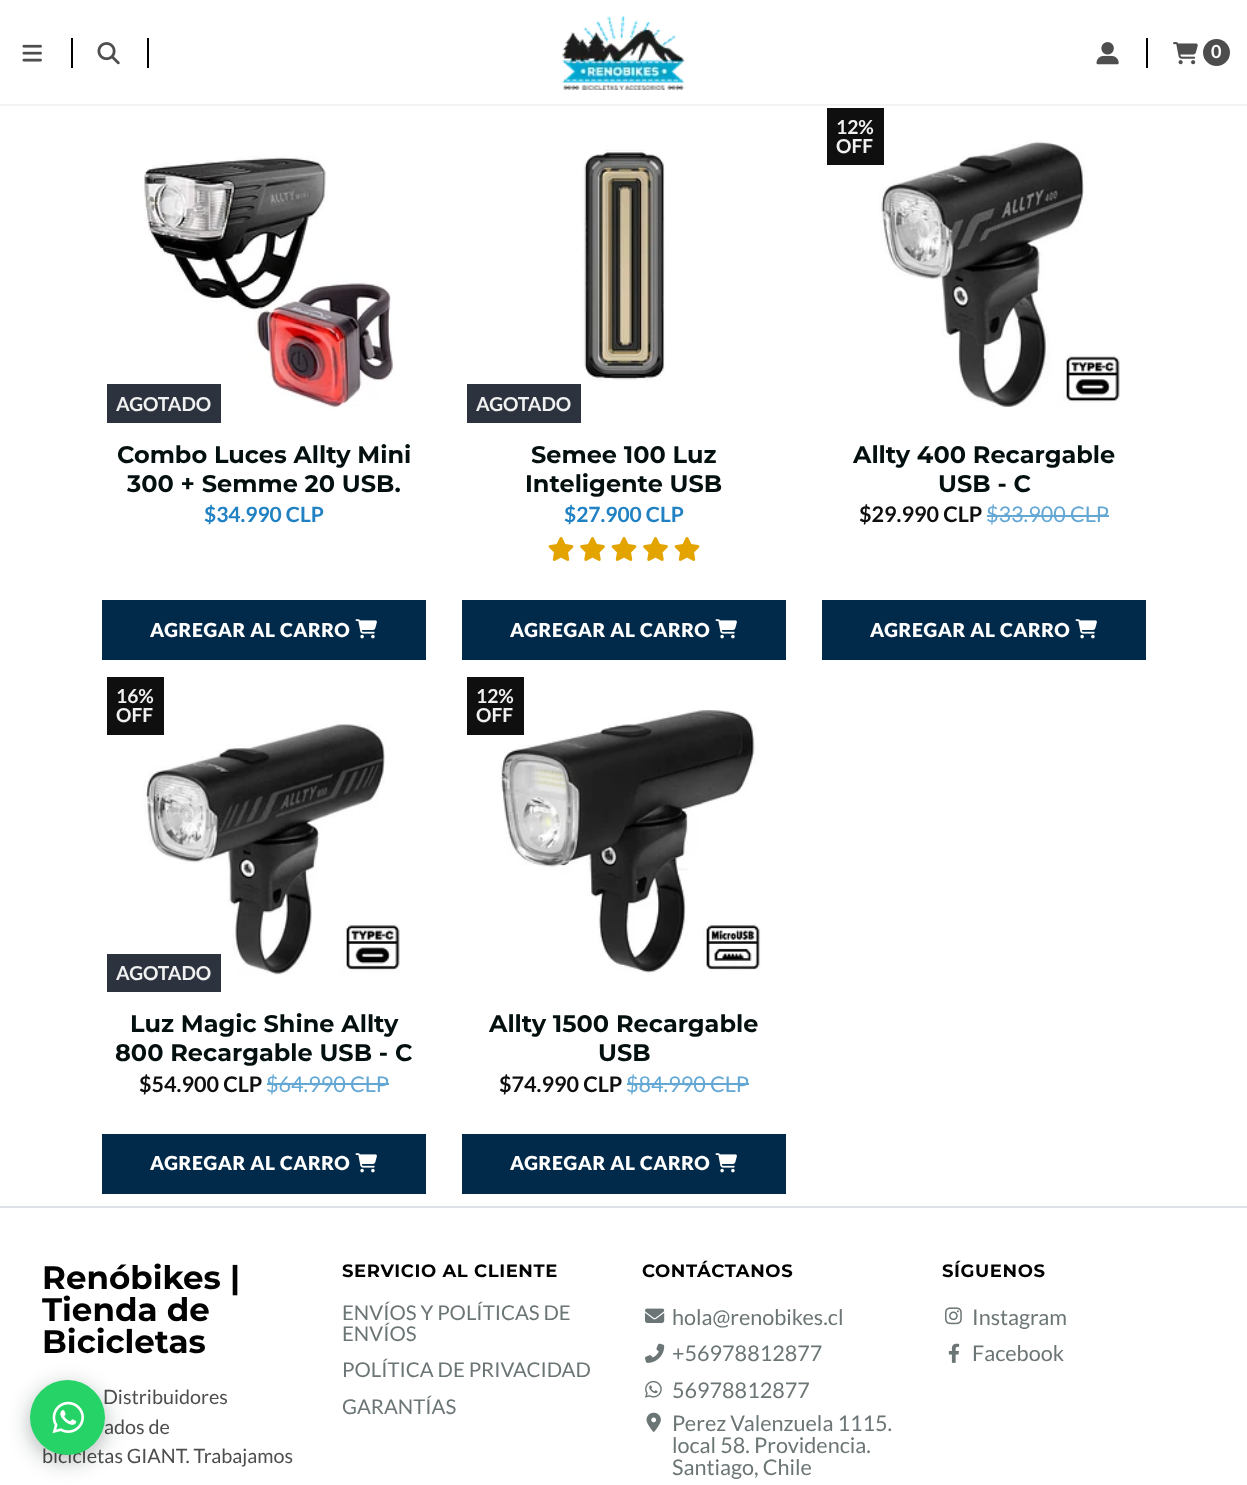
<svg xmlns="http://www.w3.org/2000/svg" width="1247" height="1485">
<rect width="100%" height="100%" fill="#fff"/>
<rect y="104" width="1247" height="2" fill="#f2f3f3"/>
<rect x="71" y="38" width="2" height="30" fill="#010101"/>
<image x="22" y="44" width="20" height="18" href="media/1.png"/>
<rect x="147" y="38" width="2" height="30" fill="#010101"/>
<image x="97" y="42" width="23" height="23" href="media/2.png"/>
<image x="562" y="16" width="123" height="74" href="media/3.png"/>
<rect x="1146" y="38" width="2" height="30" fill="#010101"/>
<image x="1096" y="42" width="23" height="23" href="media/4.png"/>
<image x="1173" y="42" width="25" height="23" href="media/5.png"/>
<circle cx="1216.5" cy="52.5" r="13.5" fill="#4d4d4d"/>
<text x="1211" y="58" style="font-family:Lato;font-size:18px;font-weight:bold;fill:#fff">0</text>
<image x="143" y="155" width="252" height="256" href="media/6.png"/>
<rect x="107" y="384" width="114" height="39" fill="#2c333e"/>
<text x="116" y="411" style="font-family:Lato;font-size:19.25px;font-weight:bold;fill:#f1f1f1">AGOTADO</text>
<text x="117" y="463" style="font-family:Montserrat;font-size:24px;font-weight:bold;fill:#040f0f">Combo Luces Allty Mini</text>
<text x="127" y="492" style="font-family:Montserrat;font-size:24px;font-weight:bold;fill:#040f0f">300 + Semme 20 USB.</text>
<text x="204" y="522" style="font-family:Lato;font-size:21px;font-weight:bold;fill:#2081c3">$34.990 CLP</text>
<rect x="102" y="600" width="324" height="60" fill="#012a4a"/>
<text x="150" y="637" style="font-family:Lato;font-size:19.25px;font-weight:900;letter-spacing:0.6px;fill:#fff">AGREGAR AL CARRO</text>
<image x="355" y="619" width="22" height="20" href="media/7.png"/>
<image x="582" y="149" width="83" height="232" href="media/8.png"/>
<rect x="467" y="384" width="114" height="39" fill="#2c333e"/>
<text x="476" y="411" style="font-family:Lato;font-size:19.25px;font-weight:bold;fill:#f1f1f1">AGOTADO</text>
<text x="531" y="463" style="font-family:Montserrat;font-size:24px;font-weight:bold;fill:#040f0f">Semee 100 Luz</text>
<text x="525" y="492" style="font-family:Montserrat;font-size:24px;font-weight:bold;fill:#040f0f">Inteligente USB</text>
<text x="564" y="522" style="font-family:Lato;font-size:21px;font-weight:bold;fill:#2081c3">$27.900 CLP</text>
<image x="548" y="537" width="26" height="24" href="media/9.png"/>
<image x="580" y="537" width="25" height="24" href="media/10.png"/>
<image x="611" y="537" width="26" height="24" href="media/9.png"/>
<image x="643" y="537" width="25" height="24" href="media/10.png"/>
<image x="674" y="537" width="26" height="24" href="media/9.png"/>
<rect x="462" y="600" width="324" height="60" fill="#012a4a"/>
<text x="510" y="637" style="font-family:Lato;font-size:19.25px;font-weight:900;letter-spacing:0.6px;fill:#fff">AGREGAR AL CARRO</text>
<image x="715" y="619" width="22" height="20" href="media/7.png"/>
<image x="879" y="140" width="241" height="267" href="media/11.png"/>
<rect x="827" y="108" width="57" height="57" fill="#0f0f0f"/>
<text x="836" y="134" style="font-family:Lato;font-size:19.25px;font-weight:bold;fill:#f1f1f1">12%</text>
<text x="836" y="153" style="font-family:Lato;font-size:19.25px;font-weight:bold;fill:#f1f1f1">OFF</text>
<text x="853" y="463" style="font-family:Montserrat;font-size:24px;font-weight:bold;fill:#040f0f">Allty 400 Recargable</text>
<text x="938" y="492" style="font-family:Montserrat;font-size:24px;font-weight:bold;fill:#040f0f">USB - C</text>
<text x="859" y="522" style="font-family:Lato;font-size:21.6px;font-weight:bold;fill:#0f0f0f">$29.990 CLP</text>
<text x="986" y="522" style="font-family:Lato;font-size:21.6px;fill:#63a7d5">$33.900 CLP</text>
<rect x="987" y="515" width="122" height="2" fill="#63a7d5"/>
<rect x="822" y="600" width="324" height="60" fill="#012a4a"/>
<text x="870" y="637" style="font-family:Lato;font-size:19.25px;font-weight:900;letter-spacing:0.6px;fill:#fff">AGREGAR AL CARRO</text>
<image x="1075" y="619" width="22" height="20" href="media/7.png"/>
<image x="143" y="724" width="257" height="251" href="media/12.png"/>
<rect x="107" y="677" width="57" height="58" fill="#0f0f0f"/>
<text x="116" y="703" style="font-family:Lato;font-size:19.25px;font-weight:bold;fill:#f1f1f1">16%</text>
<text x="116" y="722" style="font-family:Lato;font-size:19.25px;font-weight:bold;fill:#f1f1f1">OFF</text>
<rect x="107" y="954" width="114" height="38" fill="#2c333e"/>
<text x="116" y="980" style="font-family:Lato;font-size:19.25px;font-weight:bold;fill:#f1f1f1">AGOTADO</text>
<text x="130" y="1032" style="font-family:Montserrat;font-size:24px;font-weight:bold;fill:#040f0f">Luz Magic Shine Allty</text>
<text x="115" y="1061" style="font-family:Montserrat;font-size:24px;font-weight:bold;fill:#040f0f">800 Recargable USB - C</text>
<text x="139" y="1092" style="font-family:Lato;font-size:21.6px;font-weight:bold;fill:#0f0f0f">$54.900 CLP</text>
<text x="266" y="1092" style="font-family:Lato;font-size:21.6px;fill:#63a7d5">$64.990 CLP</text>
<rect x="267" y="1083" width="122" height="2" fill="#63a7d5"/>
<rect x="102" y="1134" width="324" height="60" fill="#012a4a"/>
<text x="150" y="1170" style="font-family:Lato;font-size:19.25px;font-weight:900;letter-spacing:0.6px;fill:#fff">AGREGAR AL CARRO</text>
<image x="355" y="1153" width="22" height="20" href="media/7.png"/>
<image x="498" y="709" width="263" height="266" href="media/13.png"/>
<rect x="467" y="677" width="57" height="58" fill="#0f0f0f"/>
<text x="476" y="703" style="font-family:Lato;font-size:19.25px;font-weight:bold;fill:#f1f1f1">12%</text>
<text x="476" y="722" style="font-family:Lato;font-size:19.25px;font-weight:bold;fill:#f1f1f1">OFF</text>
<text x="489" y="1032" style="font-family:Montserrat;font-size:24px;font-weight:bold;fill:#040f0f">Allty 1500 Recargable</text>
<text x="598" y="1061" style="font-family:Montserrat;font-size:24px;font-weight:bold;fill:#040f0f">USB</text>
<text x="499" y="1092" style="font-family:Lato;font-size:21.6px;font-weight:bold;fill:#0f0f0f">$74.990 CLP</text>
<text x="626" y="1092" style="font-family:Lato;font-size:21.6px;fill:#63a7d5">$84.990 CLP</text>
<rect x="627" y="1083" width="122" height="2" fill="#63a7d5"/>
<rect x="462" y="1134" width="324" height="60" fill="#012a4a"/>
<text x="510" y="1170" style="font-family:Lato;font-size:19.25px;font-weight:900;letter-spacing:0.6px;fill:#fff">AGREGAR AL CARRO</text>
<image x="715" y="1153" width="22" height="20" href="media/7.png"/>
<rect y="1206" width="1247" height="2" fill="#dee2e6"/>
<text x="42" y="1289" style="font-family:Montserrat;font-size:32.5px;font-weight:bold;fill:#010101">Renóbikes |</text>
<text x="42" y="1321" style="font-family:Montserrat;font-size:32.5px;font-weight:bold;fill:#010101">Tienda de</text>
<text x="42" y="1353" style="font-family:Montserrat;font-size:32.5px;font-weight:bold;fill:#010101">Bicicletas</text>
<text x="103" y="1404" style="font-family:Lato;font-size:19.75px;fill:#4d4d4d">Distribuidores</text>
<text x="104" y="1434" style="font-family:Lato;font-size:19.75px;fill:#4d4d4d">ados de</text>
<text x="42" y="1463" style="font-family:Lato;font-size:19.75px;fill:#4d4d4d">bicicletas GIANT. Trabajamos</text>
<text x="342" y="1277" style="font-family:Montserrat;font-size:18px;font-weight:bold;letter-spacing:0.6px;fill:#010101">SERVICIO AL CLIENTE</text>
<text x="342" y="1320" style="font-family:Lato;font-size:20.4px;fill:#6c7575">ENVÍOS Y POLÍTICAS DE</text>
<text x="342" y="1341" style="font-family:Lato;font-size:20.4px;fill:#6c7575">ENVÍOS</text>
<text x="342" y="1377" style="font-family:Lato;font-size:20.4px;fill:#6c7575">POLÍTICA DE PRIVACIDAD</text>
<text x="342" y="1414" style="font-family:Lato;font-size:20.4px;fill:#6c7575">GARANTÍAS</text>
<text x="642" y="1277" style="font-family:Montserrat;font-size:18px;font-weight:bold;letter-spacing:0.6px;fill:#010101">CONTÁCTANOS</text>
<image x="645" y="1308" width="20" height="15" href="media/14.png"/>
<text x="672" y="1325" style="font-family:Lato;font-size:21.6px;fill:#6c7575">hola@renobikes.cl</text>
<image x="645" y="1343" width="20" height="20" href="media/15.png"/>
<text x="672" y="1361" style="font-family:Lato;font-size:21.6px;fill:#6c7575">+56978812877</text>
<image x="645" y="1380" width="17" height="18" href="media/16.png"/>
<text x="672" y="1398" style="font-family:Lato;font-size:21.6px;fill:#6c7575">56978812877</text>
<image x="646" y="1412" width="15" height="20" href="media/17.png"/>
<text x="672" y="1431" style="font-family:Lato;font-size:21.6px;fill:#6c7575">Perez Valenzuela 1115.</text>
<text x="672" y="1453" style="font-family:Lato;font-size:21.6px;fill:#6c7575">local 58. Providencia.</text>
<text x="672" y="1475" style="font-family:Lato;font-size:21.6px;fill:#6c7575">Santiago, Chile</text>
<text x="942" y="1277" style="font-family:Montserrat;font-size:18px;font-weight:bold;letter-spacing:0.6px;fill:#010101">SÍGUENOS</text>
<image x="945" y="1307" width="17" height="18" href="media/18.png"/>
<text x="972" y="1325" style="font-family:Lato;font-size:21.6px;fill:#6c7575">Instagram</text>
<image x="948" y="1343" width="12" height="20" href="media/19.png"/>
<text x="972" y="1361" style="font-family:Lato;font-size:21.6px;fill:#6c7575">Facebook</text>
<rect x="30" y="1386" width="75" height="75" rx="37.5" fill="#040f0f4d" filter="blur(11px)"/>
<circle cx="67.5" cy="1417.5" r="37.5" fill="#25d366"/>
<image x="52" y="1401" width="32" height="33" href="media/20.png"/>
</svg>
